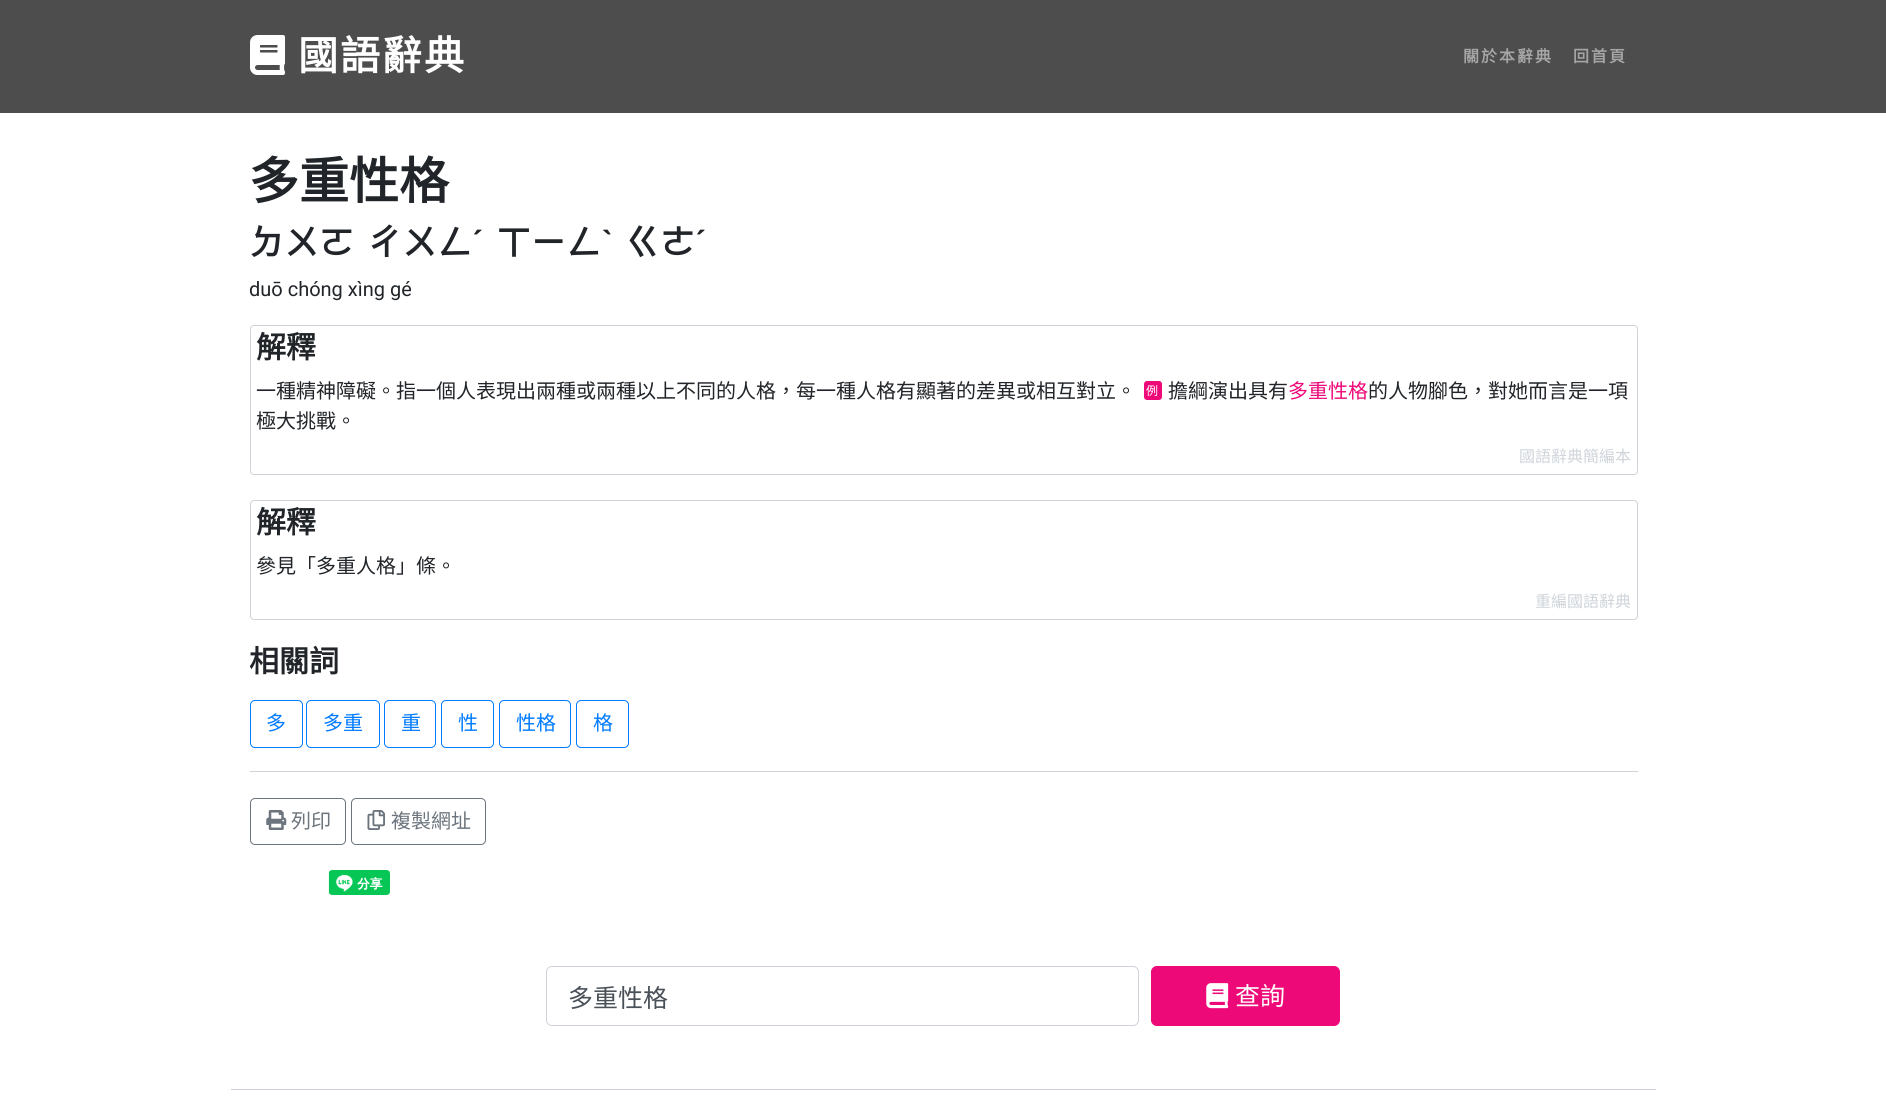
import math
import cairocffi as cairo

surface = cairo.ImageSurface(cairo.FORMAT_RGB24, 1886, 1101)
ctx = cairo.Context(surface)
options = cairo.FontOptions()
options.set_hint_metrics(cairo.HINT_METRICS_OFF)
options.set_hint_style(cairo.HINT_STYLE_NONE)
ctx.set_font_options(options)
ctx.set_miter_limit(4)


def rgb(r, g, b):
    ctx.set_source_rgb(r / 255, g / 255, b / 255)


def face(family, size, italic, bold):
    ctx.select_font_face(family, cairo.FONT_SLANT_ITALIC if italic else cairo.FONT_SLANT_NORMAL, cairo.FONT_WEIGHT_BOLD if bold else cairo.FONT_WEIGHT_NORMAL)
    ctx.set_font_size(size)


def label(x, y, s):
    ctx.move_to(x, y)
    ctx.show_text(s)


def tracked(x, y, s, letter, word):
    ctx.move_to(x, y)
    for ch in s:
        ctx.show_text(ch)
        ctx.rel_move_to(letter + word * (ch == ' '), 0)


def rect(x, y, w, h):
    ctx.rectangle(x, y, w, h)
    ctx.fill()


def rrect(x, y, w, h, r):
    ctx.new_sub_path()
    for i, (u, v) in enumerate([(x + w - r, y + h - r), (x + r, y + h - r), (x + r, y + r), (x + w - r, y + r)]):
        ctx.arc(u, v, r, i * math.pi / 2, (i + 1) * math.pi / 2)
    ctx.close_path()


def image(path, x, y, w, h):
    ctx.save()
    ctx.set_source_surface(cairo.ImageSurface.create_from_png(path), x, y)
    ctx.rectangle(x, y, w, h)
    ctx.fill()
    ctx.restore()


rgb(255, 255, 255)
ctx.paint()
rgb(77, 77, 77)
rect(0, 0, 1886, 113)
image('image0.png', 250, 35, 35, 40)
face('Noto Sans CJK TC', 40, 0, 1)
rgb(255, 255, 255)
tracked(298, 70, '國語辭典', 2, 0)
face('Noto Sans CJK TC', 16, 0, 1)
rgb(166, 166, 166)
tracked(1463, 62, '關於本辭典', 2, 0)
tracked(1573, 62, '回首頁', 2, 0)
face('Noto Sans CJK TC', 50, 0, 1)
rgb(33, 37, 41)
label(249, 199, '多重性格')
face('Noto Sans CJK TC', 35, 0, 1)
label(249, 255, 'ㄉㄨㄛ')
label(367, 255, 'ㄔㄨㄥ')
face('Liberation Sans', 35, 0, 1)
label(472, 255, 'ˊ')
face('Noto Sans CJK TC', 35, 0, 1)
label(496, 255, 'ㄒㄧㄥ')
face('Liberation Sans', 35, 0, 1)
label(601, 255, 'ˋ')
face('Noto Sans CJK TC', 35, 0, 1)
label(625, 255, 'ㄍㄜ')
face('Liberation Sans', 35, 0, 1)
label(695, 255, 'ˊ')
face('Roboto', 20, 0, 0)
label(249, 296, 'duō chóng xìng gé')
rrect(250.5, 325.5, 1387, 149, 3.5)
rgb(206, 212, 218)
ctx.set_line_width(1)
ctx.stroke()
face('Noto Sans CJK TC', 30, 0, 1)
rgb(33, 37, 41)
label(256, 358, '解釋')
face('Noto Sans CJK TC', 20, 0, 0)
label(256, 398, '一種精神障礙。指一個人表現出兩種或兩種以上不同的人格，每一種人格有顯著的差異或相互對立。')
rgb(238, 9, 121)
rrect(1143.5, 380.5, 19, 20, 3.5)
ctx.fill_preserve()
rgb(255, 255, 255)
ctx.stroke()
face('Noto Sans CJK TC', 12, 0, 0)
label(1146, 395, '例')
face('Noto Sans CJK TC', 20, 0, 0)
rgb(33, 37, 41)
label(1168, 398, '擔綱演出具有')
rgb(238, 9, 121)
label(1288, 398, '多重性格')
rgb(33, 37, 41)
label(1368, 398, '的人物腳色，對她而言是一項')
label(256, 428, '極大挑戰。')
face('Noto Sans CJK TC', 16, 0, 0)
rgb(206, 212, 218)
label(1519, 462, '國語辭典簡編本')
rrect(250.5, 500.5, 1387, 119, 3.5)
ctx.stroke()
face('Noto Sans CJK TC', 30, 0, 1)
rgb(33, 37, 41)
label(256, 533, '解釋')
face('Noto Sans CJK TC', 20, 0, 0)
label(256, 573, '參見「多重人格」條。')
face('Noto Sans CJK TC', 16, 0, 0)
rgb(206, 212, 218)
label(1535, 607, '重編國語辭典')
face('Noto Sans CJK TC', 30, 0, 1)
rgb(33, 37, 41)
label(249, 672, '相關詞')
rrect(250.5, 700.5, 52, 47, 4.5)
rgb(0, 123, 255)
ctx.stroke()
face('Noto Sans CJK TC', 20, 0, 0)
label(266, 730, '多')
rrect(306.5, 700.5, 73, 47, 4.5)
ctx.stroke()
label(323, 730, '多重')
rrect(384.5, 700.5, 51, 47, 4.5)
ctx.stroke()
label(401, 730, '重')
rrect(441.5, 700.5, 52, 47, 4.5)
ctx.stroke()
label(458, 730, '性')
rrect(499.5, 700.5, 71, 47, 4.5)
ctx.stroke()
label(516, 730, '性格')
rrect(576.5, 700.5, 52, 47, 4.5)
ctx.stroke()
label(593, 730, '格')
rgb(206, 212, 218)
rect(250, 771, 1388, 1)
rrect(250.5, 798.5, 95, 46, 4.5)
rgb(108, 117, 125)
ctx.stroke()
image('image1.png', 266, 810, 21, 20)
label(291, 828, '列印')
rrect(351.5, 798.5, 134, 46, 4.5)
ctx.stroke()
image('image2.png', 367, 810, 18, 20)
label(391, 828, '複製網址')
image('image3.png', 328, 870, 62, 25)
rrect(546.5, 966.5, 592, 59, 5.5)
rgb(206, 212, 218)
ctx.stroke()
face('Noto Sans CJK TC', 25, 0, 0)
rgb(73, 80, 87)
label(568, 1007, '多重性格')
rgb(238, 9, 121)
rrect(1151.5, 966.5, 188, 59, 5.5)
ctx.fill_preserve()
ctx.stroke()
image('image4.png', 1206, 983, 23, 26)
rgb(255, 255, 255)
label(1235, 1005, '查詢')
rgb(206, 212, 218)
rect(231, 1089, 1425, 1)
surface.write_to_png('render.png')
